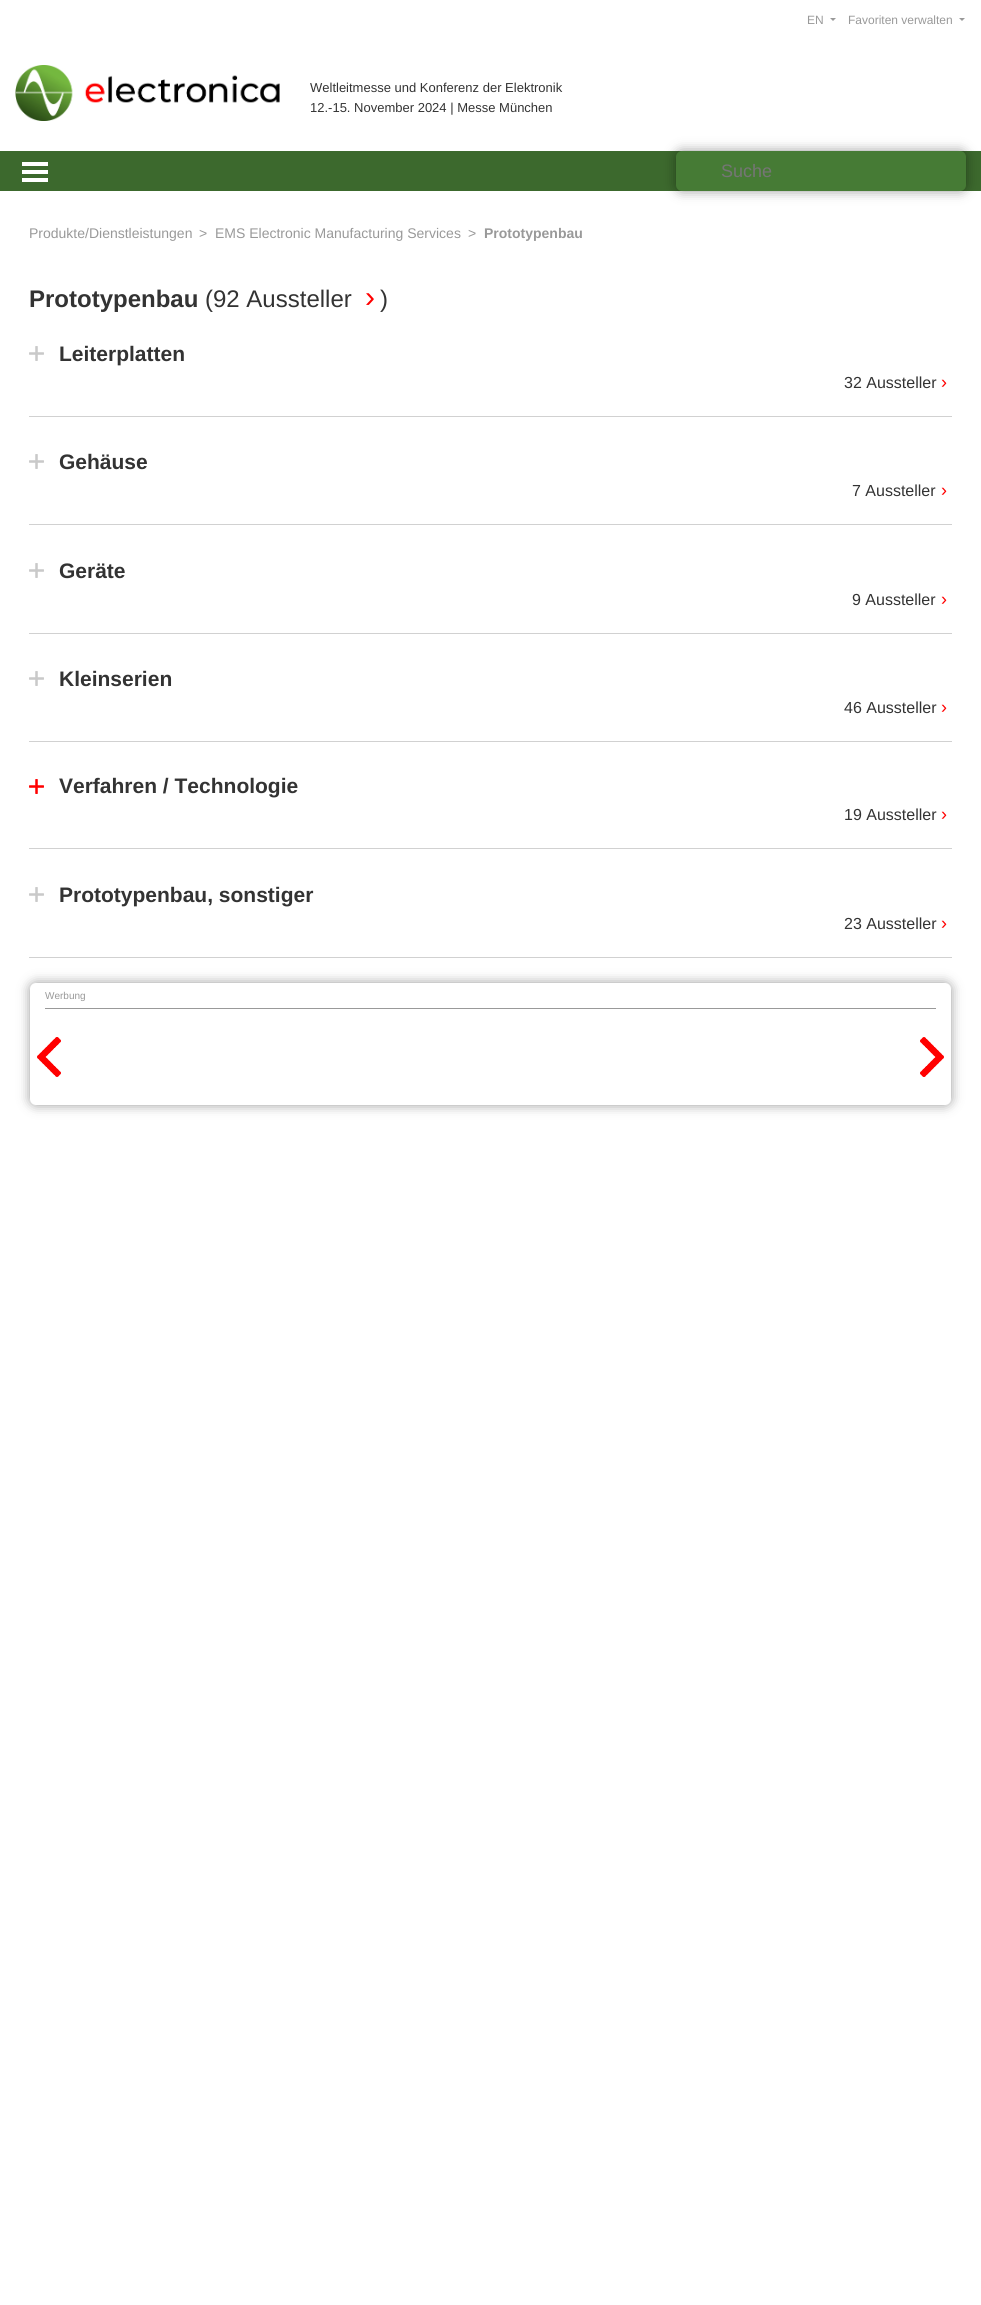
import math
import cairocffi as cairo

surface = cairo.ImageSurface(cairo.FORMAT_RGB24, 981, 2305)
ctx = cairo.Context(surface)
options = cairo.FontOptions()
options.set_hint_metrics(cairo.HINT_METRICS_OFF)
options.set_hint_style(cairo.HINT_STYLE_NONE)
ctx.set_font_options(options)
ctx.set_miter_limit(4)


def rgb(r, g, b):
    ctx.set_source_rgb(r / 255, g / 255, b / 255)


def face(family, size, italic, bold):
    ctx.select_font_face(family, cairo.FONT_SLANT_ITALIC if italic else cairo.FONT_SLANT_NORMAL, cairo.FONT_WEIGHT_BOLD if bold else cairo.FONT_WEIGHT_NORMAL)
    ctx.set_font_size(size)


def label(x, y, s):
    ctx.move_to(x, y)
    ctx.show_text(s)


def rect(x, y, w, h):
    ctx.rectangle(x, y, w, h)
    ctx.fill()


def rrect(x, y, w, h, r):
    ctx.new_sub_path()
    for i, (u, v) in enumerate([(x + w - r, y + h - r), (x + r, y + h - r), (x + r, y + r), (x + w - r, y + r)]):
        ctx.arc(u, v, r, i * math.pi / 2, (i + 1) * math.pi / 2)
    ctx.close_path()


def soft_shadow(x, y, w, h, r, blur, alpha):
    ctx.push_group_with_content(cairo.CONTENT_ALPHA)
    ctx.set_operator(cairo.OPERATOR_SOURCE)
    for i in range(15, -16, -2):
        e = blur * i / 6
        if min(w, h) + 2 * e > 0:
            ctx.set_source_rgba(0, 0, 0, alpha * math.erfc((i - 1) / 8.5) / 2)
            rrect(x - e, y - e, w + 2 * e, h + 2 * e, max(0, min(r + e + blur * .6, min(w, h) / 2 + e)))
            ctx.fill()
    ctx.mask(ctx.pop_group())


def image(path, x, y, w, h):
    ctx.save()
    ctx.set_source_surface(cairo.ImageSurface.create_from_png(path), x, y)
    ctx.rectangle(x, y, w, h)
    ctx.fill()
    ctx.restore()


rgb(255, 255, 255)
ctx.paint()
face('Liberation Sans', 12, 0, 0)
rgb(153, 153, 153)
label(807, 24, 'EN')
ctx.new_path()
ctx.move_to(830, 18)
ctx.line_to(836, 18)
ctx.line_to(833, 21)
ctx.close_path()
ctx.fill()
label(848, 24, 'Favoriten verwalten')
ctx.new_path()
ctx.move_to(959, 18)
ctx.line_to(965, 18)
ctx.line_to(962, 21)
ctx.close_path()
ctx.fill()
image('image0.png', 15, 65, 265, 56)
face('Liberation Sans', 13, 0, 0)
rgb(51, 51, 51)
label(310, 92, 'Weltleitmesse und Konferenz der Elektronik')
label(310, 112, '12.-15. November 2024 | Messe München')
rgb(60, 105, 45)
rect(0, 151, 981, 40)
rgb(0, 0, 0)
soft_shadow(676, 151, 290, 40, 6, 6, 0.4)
rgb(70, 123, 53)
rrect(676, 151, 290, 40, 6)
ctx.fill()
face('Liberation Sans', 18, 0, 0)
rgb(117, 117, 117)
label(721, 177, 'Suche')
image('image1.png', 22, 162, 26, 20)
face('Liberation Sans', 14, 0, 0)
rgb(153, 153, 153)
label(29, 238, 'Produkte/Dienstleistungen')
label(199, 238, '>')
label(215, 238, 'EMS Electronic Manufacturing Services')
label(468, 238, '>')
face('Liberation Sans', 14, 0, 1)
label(484, 238, 'Prototypenbau')
face('Liberation Sans', 24, 0, 1)
rgb(51, 51, 51)
label(29, 307, 'Prototypenbau')
face('Liberation Sans', 24, 0, 0)
label(205, 307, '(92 Aussteller')
face('Liberation Sans', 30, 0, 0)
rgb(255, 0, 0)
label(365, 307, '›')
face('Liberation Sans', 24, 0, 0)
rgb(51, 51, 51)
label(380, 307, ')')
image('image2.png', 29, 346, 15, 15)
face('Liberation Sans', 21, 0, 1)
label(59, 361, 'Leiterplatten')
face('Liberation Sans', 16, 0, 0)
label(844, 388, '32 Aussteller')
face('Liberation Sans', 18, 0, 0)
rgb(255, 0, 0)
label(941, 388, '›')
rgb(209, 209, 209)
rect(29, 416, 923, 1)
image('image2.png', 29, 454, 15, 15)
face('Liberation Sans', 21, 0, 1)
rgb(51, 51, 51)
label(59, 469, 'Gehäuse')
face('Liberation Sans', 16, 0, 0)
label(852, 496, '7 Aussteller')
face('Liberation Sans', 18, 0, 0)
rgb(255, 0, 0)
label(941, 496, '›')
rgb(209, 209, 209)
rect(29, 524, 923, 1)
image('image2.png', 29, 563, 15, 15)
face('Liberation Sans', 21, 0, 1)
rgb(51, 51, 51)
label(59, 578, 'Geräte')
face('Liberation Sans', 16, 0, 0)
label(852, 605, '9 Aussteller')
face('Liberation Sans', 18, 0, 0)
rgb(255, 0, 0)
label(941, 605, '›')
rgb(209, 209, 209)
rect(29, 633, 923, 1)
image('image2.png', 29, 671, 15, 15)
face('Liberation Sans', 21, 0, 1)
rgb(51, 51, 51)
label(59, 686, 'Kleinserien')
face('Liberation Sans', 16, 0, 0)
label(844, 713, '46 Aussteller')
face('Liberation Sans', 18, 0, 0)
rgb(255, 0, 0)
label(941, 713, '›')
rgb(209, 209, 209)
rect(29, 741, 923, 1)
image('image3.png', 29, 779, 15, 15)
face('Liberation Sans', 21, 0, 1)
rgb(51, 51, 51)
label(59, 793, 'Verfahren / Technologie')
face('Liberation Sans', 16, 0, 0)
label(844, 820, '19 Aussteller')
face('Liberation Sans', 18, 0, 0)
rgb(255, 0, 0)
label(941, 820, '›')
rgb(209, 209, 209)
rect(29, 848, 923, 1)
image('image2.png', 29, 887, 15, 15)
face('Liberation Sans', 21, 0, 1)
rgb(51, 51, 51)
label(59, 902, 'Prototypenbau, sonstiger')
face('Liberation Sans', 16, 0, 0)
label(844, 929, '23 Aussteller')
face('Liberation Sans', 18, 0, 0)
rgb(255, 0, 0)
label(941, 929, '›')
rgb(209, 209, 209)
rect(29, 957, 923, 1)
rgb(0, 0, 0)
soft_shadow(30, 983, 921, 122, 6, 6, 0.4)
rgb(255, 255, 255)
rrect(30, 983, 921, 122, 6)
ctx.fill()
rgb(153, 153, 153)
rect(45, 1008, 891, 1)
face('Liberation Sans', 10, 0, 0)
label(45, 999, 'Werbung')
image('image4.png', 37, 1037, 24, 40)
image('image5.png', 920, 1037, 24, 40)
surface.write_to_png('render.png')
